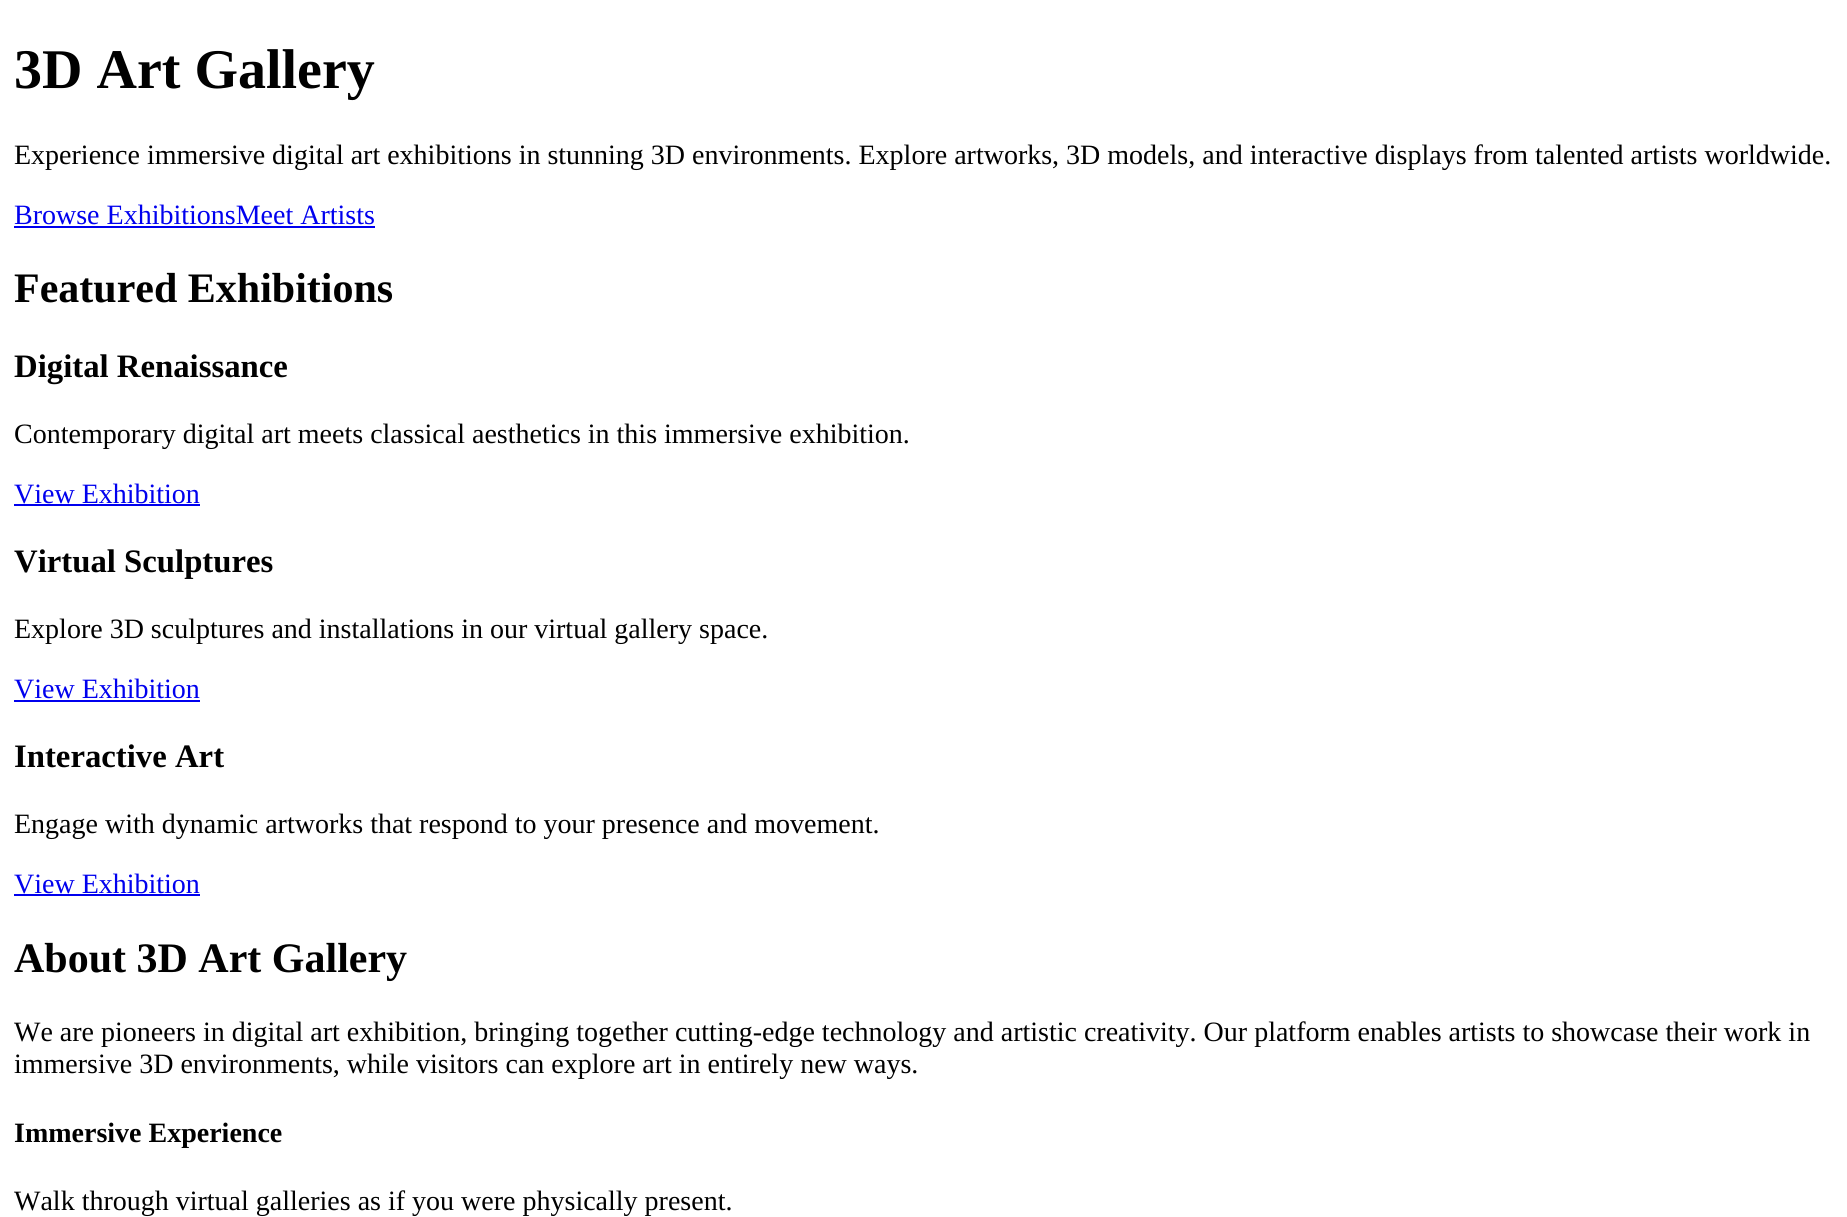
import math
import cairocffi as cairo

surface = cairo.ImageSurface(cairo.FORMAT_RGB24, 1847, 1217)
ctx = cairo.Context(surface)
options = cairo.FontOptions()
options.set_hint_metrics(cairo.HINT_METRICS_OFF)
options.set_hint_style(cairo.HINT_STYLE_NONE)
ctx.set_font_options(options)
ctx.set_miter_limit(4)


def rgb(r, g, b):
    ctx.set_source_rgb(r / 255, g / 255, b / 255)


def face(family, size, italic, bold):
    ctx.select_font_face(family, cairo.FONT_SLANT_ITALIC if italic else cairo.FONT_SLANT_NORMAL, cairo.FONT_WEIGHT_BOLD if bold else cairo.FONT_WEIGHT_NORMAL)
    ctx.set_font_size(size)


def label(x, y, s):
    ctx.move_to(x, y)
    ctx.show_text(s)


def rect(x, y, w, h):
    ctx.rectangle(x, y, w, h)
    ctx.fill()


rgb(255, 255, 255)
ctx.paint()
face('Liberation Serif', 56, 0, 1)
rgb(0, 0, 0)
label(14, 88, '3D Art Gallery')
face('Liberation Serif', 28, 0, 0)
label(14, 164, 'Experience immersive digital art exhibitions in stunning 3D environments. Explore artworks, 3D models, and interactive displays from talented artists worldwide.')
rgb(0, 0, 238)
label(14, 224, 'Browse ExhibitionsMeet Artists')
rect(14, 226, 361, 2)
face('Liberation Serif', 42, 0, 1)
rgb(0, 0, 0)
label(14, 302, 'Featured Exhibitions')
face('Liberation Serif', 32.75, 0, 1)
label(14, 377, 'Digital Renaissance')
face('Liberation Serif', 28, 0, 0)
label(14, 443, 'Contemporary digital art meets classical aesthetics in this immersive exhibition.')
rgb(0, 0, 238)
label(14, 503, 'View Exhibition')
rect(14, 504, 186, 2)
face('Liberation Serif', 32.75, 0, 1)
rgb(0, 0, 0)
label(14, 572, 'Virtual Sculptures')
face('Liberation Serif', 28, 0, 0)
label(14, 638, 'Explore 3D sculptures and installations in our virtual gallery space.')
rgb(0, 0, 238)
label(14, 698, 'View Exhibition')
rect(14, 700, 186, 2)
face('Liberation Serif', 32.75, 0, 1)
rgb(0, 0, 0)
label(14, 767, 'Interactive Art')
face('Liberation Serif', 28, 0, 0)
label(14, 833, 'Engage with dynamic artworks that respond to your presence and movement.')
rgb(0, 0, 238)
label(14, 893, 'View Exhibition')
rect(14, 894, 186, 2)
face('Liberation Serif', 42, 0, 1)
rgb(0, 0, 0)
label(14, 972, 'About 3D Art Gallery')
face('Liberation Serif', 28, 0, 0)
label(14, 1041, 'We are pioneers in digital art exhibition, bringing together cutting-edge technology and artistic creativity. Our platform enables artists to showcase their work in')
label(14, 1073, 'immersive 3D environments, while visitors can explore art in entirely new ways.')
face('Liberation Serif', 28, 0, 1)
label(14, 1142, 'Immersive Experience')
face('Liberation Serif', 28, 0, 0)
label(14, 1210, 'Walk through virtual galleries as if you were physically present.')
surface.write_to_png('render.png')
